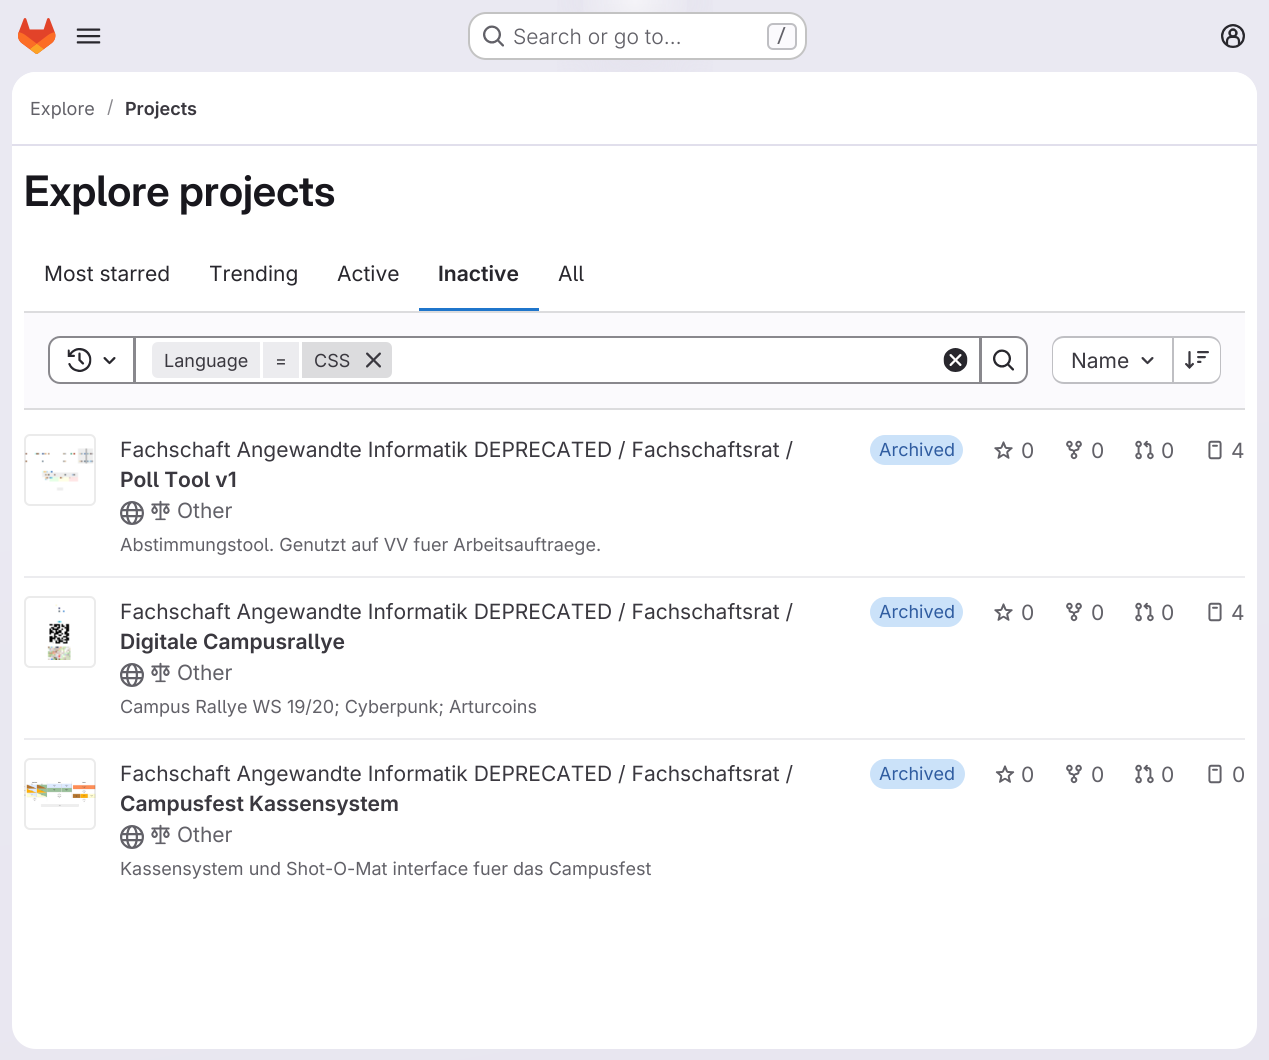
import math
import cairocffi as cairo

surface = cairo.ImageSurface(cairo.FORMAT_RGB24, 1269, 1060)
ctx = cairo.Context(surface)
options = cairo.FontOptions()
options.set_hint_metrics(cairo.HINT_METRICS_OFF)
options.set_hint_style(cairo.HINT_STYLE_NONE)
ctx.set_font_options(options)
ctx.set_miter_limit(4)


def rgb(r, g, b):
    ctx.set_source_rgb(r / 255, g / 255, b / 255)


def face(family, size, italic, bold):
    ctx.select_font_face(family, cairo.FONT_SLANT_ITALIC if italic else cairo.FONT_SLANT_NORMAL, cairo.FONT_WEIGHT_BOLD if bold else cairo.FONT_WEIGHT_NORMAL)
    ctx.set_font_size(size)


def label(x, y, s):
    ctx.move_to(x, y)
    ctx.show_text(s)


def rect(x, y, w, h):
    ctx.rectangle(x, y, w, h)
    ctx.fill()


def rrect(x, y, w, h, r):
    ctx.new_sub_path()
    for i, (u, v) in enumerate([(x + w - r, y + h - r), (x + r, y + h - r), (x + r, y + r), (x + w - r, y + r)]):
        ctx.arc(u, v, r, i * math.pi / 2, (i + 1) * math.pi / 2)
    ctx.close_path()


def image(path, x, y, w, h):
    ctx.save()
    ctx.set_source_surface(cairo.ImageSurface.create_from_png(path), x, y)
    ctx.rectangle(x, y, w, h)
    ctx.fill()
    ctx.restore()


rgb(255, 255, 255)
ctx.paint()
gradient = cairo.LinearGradient(744, 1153, 525, -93)
gradient.add_color_stop_rgba(0, 0.91, 0.902, 0.941, 1)
gradient.add_color_stop_rgba(0.7, 0.918, 0.914, 0.949, 1)
ctx.set_source(gradient)
rect(0, 0, 1269, 1060)
gradient = cairo.RadialGradient(0, 0, 0, 0, 0, 1)
gradient.set_matrix(cairo.Matrix(1 / 635, 0, 0, 1 / 1061, -1 * 635 / 635, -1 * 0 / 1061))
gradient.add_color_stop_rgba(0, 0.894, 0.886, 0.929, 1)
gradient.add_color_stop_rgba(0.17, 0.894, 0.886, 0.929, 0)
ctx.set_source(gradient)
rect(557, 0, 156, 72)
gradient = cairo.RadialGradient(0, 0, 0, 0, 0, 1)
gradient.set_matrix(cairo.Matrix(1 / 635, 0, 0, 1 / 1061, -1 * 635 / 635, -1 * 0 / 1061))
gradient.add_color_stop_rgba(0, 0.894, 0.886, 0.925, 1)
gradient.add_color_stop_rgba(0.12, 0.894, 0.886, 0.925, 0)
ctx.set_source(gradient)
rect(604, 4, 62, 48)
gradient = cairo.RadialGradient(635, 0, 0, 635, 0, 1236)
gradient.add_color_stop_rgba(0, 1, 1, 1, 0.6)
gradient.add_color_stop_rgba(0.05, 1, 1, 1, 0)
ctx.set_source(gradient)
rect(583, 0, 104, 12)
image('image0.png', 18, 18, 38, 36)
image('image1.png', 76, 28, 25, 16)
rgb(255, 255, 255)
rrect(468, 12, 339, 48, 18)
ctx.fill()
rrect(469, 13, 337, 46, 17)
ctx.set_source_rgba(0.02, 0.02, 0.024, 0.24)
ctx.stroke()
image('image2.png', 483, 25, 21, 22)
face('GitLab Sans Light', 21, 0, 0)
rgb(98, 97, 104)
label(513, 44, 'Search or go to…')
rgb(251, 250, 253)
rrect(768, 24, 28, 25, 5)
ctx.fill_preserve()
rgb(191, 191, 195)
ctx.stroke()
face('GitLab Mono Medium', 18, 0, 0)
rgb(98, 97, 104)
label(776, 42, '/')
image('image3.png', 1221, 24, 24, 24)
rgb(255, 255, 255)
rrect(12, 72, 1245, 977, 24)
ctx.fill()
ctx.new_path()
ctx.move_to(36, 72)
ctx.line_to(1233, 72)
ctx.curve_to(1246.5, 72, 1257, 82.5, 1257, 96)
ctx.line_to(1257, 146)
ctx.line_to(12, 146)
ctx.line_to(12, 96)
ctx.curve_to(12, 82.5, 22.5, 72, 36, 72)
ctx.close_path()
ctx.fill()
rgb(225, 223, 236)
rect(12, 144, 1245, 2)
face('GitLab Sans', 18, 0, 0)
rgb(98, 97, 104)
label(30, 115, 'Explore')
rgb(137, 136, 141)
label(107, 113, '/')
face('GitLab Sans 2 SemiBold', 18, 0, 0)
rgb(58, 56, 63)
label(125, 115, 'Projects')
face('GitLab Sans SemiBold', 42, 0, 0)
rgb(24, 23, 29)
label(24, 206, 'Explore projects')
face('GitLab Sans', 21, 0, 0)
rgb(40, 39, 45)
label(44, 281, 'Most starred')
label(209, 281, 'Trending')
label(337, 281, 'Active')
face('GitLab Sans 2 SemiBold', 21, 0, 0)
label(438, 281, 'Inactive')
rgb(31, 117, 203)
rect(419, 308, 120, 3)
face('GitLab Sans', 21, 0, 0)
rgb(40, 39, 45)
label(558, 281, 'All')
rgb(251, 250, 253)
rect(24, 313, 1221, 95)
rgb(220, 220, 222)
rect(24, 311, 1221, 2)
rect(24, 408, 1221, 2)
rgb(255, 255, 255)
ctx.rectangle(135, 337, 845, 46)
ctx.fill_preserve()
rgb(137, 136, 141)
ctx.stroke()
rgb(255, 255, 255)
ctx.new_path()
ctx.move_to(60, 337)
ctx.line_to(134, 337)
ctx.line_to(134, 383)
ctx.line_to(60, 383)
ctx.curve_to(54, 383, 49, 378, 49, 372)
ctx.line_to(49, 348)
ctx.curve_to(49, 342, 54, 337, 60, 337)
ctx.close_path()
ctx.fill_preserve()
rgb(137, 136, 141)
ctx.stroke()
image('image4.png', 67, 348, 25, 24)
image('image5.png', 103, 357, 13, 8)
rgb(236, 236, 239)
ctx.new_path()
ctx.move_to(158, 342)
ctx.line_to(260, 342)
ctx.line_to(260, 378)
ctx.line_to(158, 378)
ctx.curve_to(154.5, 378, 152, 375.5, 152, 372)
ctx.line_to(152, 348)
ctx.curve_to(152, 344.5, 154.5, 342, 158, 342)
ctx.close_path()
ctx.fill()
face('GitLab Sans', 18, 0, 0)
rgb(58, 56, 63)
label(164, 367, 'Language')
rgb(236, 236, 239)
rect(263, 342, 36, 36)
rgb(58, 56, 63)
label(275, 367, '=')
rgb(220, 220, 222)
ctx.new_path()
ctx.move_to(302, 342)
ctx.line_to(386, 342)
ctx.curve_to(389.5, 342, 392, 344.5, 392, 348)
ctx.line_to(392, 372)
ctx.curve_to(392, 375.5, 389.5, 378, 386, 378)
ctx.line_to(302, 378)
ctx.close_path()
ctx.fill()
rgb(58, 56, 63)
label(314, 367, 'CSS')
image('image6.png', 366, 352, 15, 16)
image('image7.png', 943, 348, 25, 24)
rgb(255, 255, 255)
ctx.new_path()
ctx.move_to(981, 337)
ctx.line_to(1016, 337)
ctx.curve_to(1022, 337, 1027, 342, 1027, 348)
ctx.line_to(1027, 372)
ctx.curve_to(1027, 378, 1022, 383, 1016, 383)
ctx.line_to(981, 383)
ctx.close_path()
ctx.fill_preserve()
rgb(137, 136, 141)
ctx.stroke()
image('image8.png', 993, 349, 21, 22)
rgb(255, 255, 255)
ctx.new_path()
ctx.move_to(1064, 338)
ctx.line_to(1172, 338)
ctx.line_to(1172, 383)
ctx.line_to(1064, 383)
ctx.curve_to(1058, 383, 1053, 378, 1053, 372)
ctx.line_to(1053, 349)
ctx.curve_to(1053, 343, 1058, 338, 1064, 338)
ctx.close_path()
ctx.fill()
rgb(191, 191, 195)
ctx.set_fill_rule(cairo.FILL_RULE_EVEN_ODD)
ctx.new_path()
ctx.move_to(1064, 336)
ctx.line_to(1172, 336)
ctx.line_to(1172, 384)
ctx.line_to(1064, 384)
ctx.curve_to(1057, 384, 1052, 379, 1052, 372)
ctx.line_to(1052, 348)
ctx.curve_to(1052, 341, 1057, 336, 1064, 336)
ctx.close_path()
ctx.move_to(1064, 338)
ctx.line_to(1172, 338)
ctx.line_to(1172, 382)
ctx.line_to(1064, 382)
ctx.curve_to(1058, 382, 1053, 378, 1053, 372)
ctx.line_to(1053, 348)
ctx.curve_to(1053, 342, 1058, 338, 1064, 338)
ctx.close_path()
ctx.fill()
face('GitLab Sans', 21, 0, 0)
rgb(58, 56, 63)
label(1071, 368, 'Name')
image('image9.png', 1141, 357, 13, 8)
rgb(255, 255, 255)
ctx.new_path()
ctx.move_to(1173, 338)
ctx.line_to(1209, 338)
ctx.curve_to(1215, 338, 1220, 343, 1220, 349)
ctx.line_to(1220, 372)
ctx.curve_to(1220, 378, 1215, 383, 1209, 383)
ctx.line_to(1173, 383)
ctx.close_path()
ctx.fill()
rgb(191, 191, 195)
ctx.new_path()
ctx.move_to(1173, 336)
ctx.line_to(1209, 336)
ctx.curve_to(1216, 336, 1221, 341, 1221, 348)
ctx.line_to(1221, 372)
ctx.curve_to(1221, 379, 1216, 384, 1209, 384)
ctx.line_to(1173, 384)
ctx.close_path()
ctx.move_to(1173, 338)
ctx.line_to(1209, 338)
ctx.curve_to(1215, 338, 1220, 342, 1220, 348)
ctx.line_to(1220, 372)
ctx.curve_to(1220, 378, 1215, 382, 1209, 382)
ctx.line_to(1173, 382)
ctx.close_path()
ctx.fill()
rect(1172, 336, 2, 48)
image('image10.png', 1185, 351, 24, 18)
rgb(236, 236, 239)
rect(24, 576, 1221, 2)
image('image11.png', 25, 448, 69, 43)
rrect(25, 435, 70, 70, 5)
ctx.set_source_rgba(0.02, 0.02, 0.024, 0.08)
ctx.stroke()
rgb(58, 56, 63)
label(120, 457, 'Fachschaft Angewandte Informatik DEPRECATED / Fachschaftsrat /')
face('GitLab Sans 2 SemiBold', 21, 0, 0)
label(120, 487, 'Poll Tool v1')
image('image12.png', 120, 501, 24, 24)
image('image13.png', 151, 500, 19, 21)
face('GitLab Sans', 21, 0, 0)
rgb(98, 97, 104)
label(177, 518, 'Other')
face('GitLab Sans', 18, 0, 0)
label(120, 551, 'Abstimmungstool. Genutzt auf VV fuer Arbeitsauftraege.')
rgb(203, 226, 249)
rrect(870, 435, 93, 30, 15)
ctx.fill()
rgb(47, 92, 160)
label(879, 456, 'Archived')
image('image14.png', 994, 441, 19, 18)
face('GitLab Sans', 21, 0, 0)
rgb(98, 97, 104)
label(1021, 458, '0')
image('image15.png', 1066, 440, 16, 20)
label(1091, 458, '0')
image('image16.png', 1135, 440, 19, 20)
label(1161, 458, '0')
image('image17.png', 1208, 440, 14, 20)
label(1231, 458, '4')
rgb(236, 236, 239)
rect(24, 738, 1221, 2)
image('image18.png', 47, 604, 24, 56)
rrect(25, 597, 70, 70, 5)
rgb(235, 235, 235)
ctx.stroke()
rgb(58, 56, 63)
label(120, 619, 'Fachschaft Angewandte Informatik DEPRECATED / Fachschaftsrat /')
face('GitLab Sans 2 SemiBold', 21, 0, 0)
label(120, 649, 'Digitale Campusrallye')
image('image19.png', 120, 663, 24, 24)
image('image20.png', 151, 662, 19, 21)
face('GitLab Sans', 21, 0, 0)
rgb(98, 97, 104)
label(177, 680, 'Other')
face('GitLab Sans', 18, 0, 0)
label(120, 713, 'Campus Rallye WS 19/20; Cyberpunk; Arturcoins')
rgb(203, 226, 249)
rrect(870, 597, 93, 30, 15)
ctx.fill()
rgb(47, 92, 160)
label(879, 618, 'Archived')
image('image14.png', 994, 603, 19, 18)
face('GitLab Sans', 21, 0, 0)
rgb(98, 97, 104)
label(1021, 620, '0')
image('image15.png', 1066, 602, 16, 20)
label(1091, 620, '0')
image('image16.png', 1135, 602, 19, 20)
label(1161, 620, '0')
image('image17.png', 1208, 602, 14, 20)
label(1231, 620, '4')
image('image21.png', 24, 781, 72, 26)
rrect(25, 759, 70, 70, 5)
ctx.set_source_rgba(0.02, 0.02, 0.024, 0.08)
ctx.stroke()
rgb(58, 56, 63)
label(120, 781, 'Fachschaft Angewandte Informatik DEPRECATED / Fachschaftsrat /')
face('GitLab Sans 2 SemiBold', 21, 0, 0)
label(120, 811, 'Campusfest Kassensystem')
image('image19.png', 120, 825, 24, 24)
image('image20.png', 151, 824, 19, 21)
face('GitLab Sans', 21, 0, 0)
rgb(98, 97, 104)
label(177, 842, 'Other')
face('GitLab Sans', 18, 0, 0)
label(120, 875, 'Kassensystem und Shot-O-Mat interface fuer das Campusfest')
rgb(203, 226, 249)
rrect(870, 759, 95, 30, 15)
ctx.fill()
rgb(47, 92, 160)
label(879, 780, 'Archived')
image('image22.png', 995, 765, 20, 18)
face('GitLab Sans', 21, 0, 0)
rgb(98, 97, 104)
label(1021, 782, '0')
image('image15.png', 1066, 764, 16, 20)
label(1091, 782, '0')
image('image16.png', 1135, 764, 19, 20)
label(1161, 782, '0')
image('image17.png', 1208, 764, 14, 20)
label(1232, 782, '0')
surface.write_to_png('render.png')
